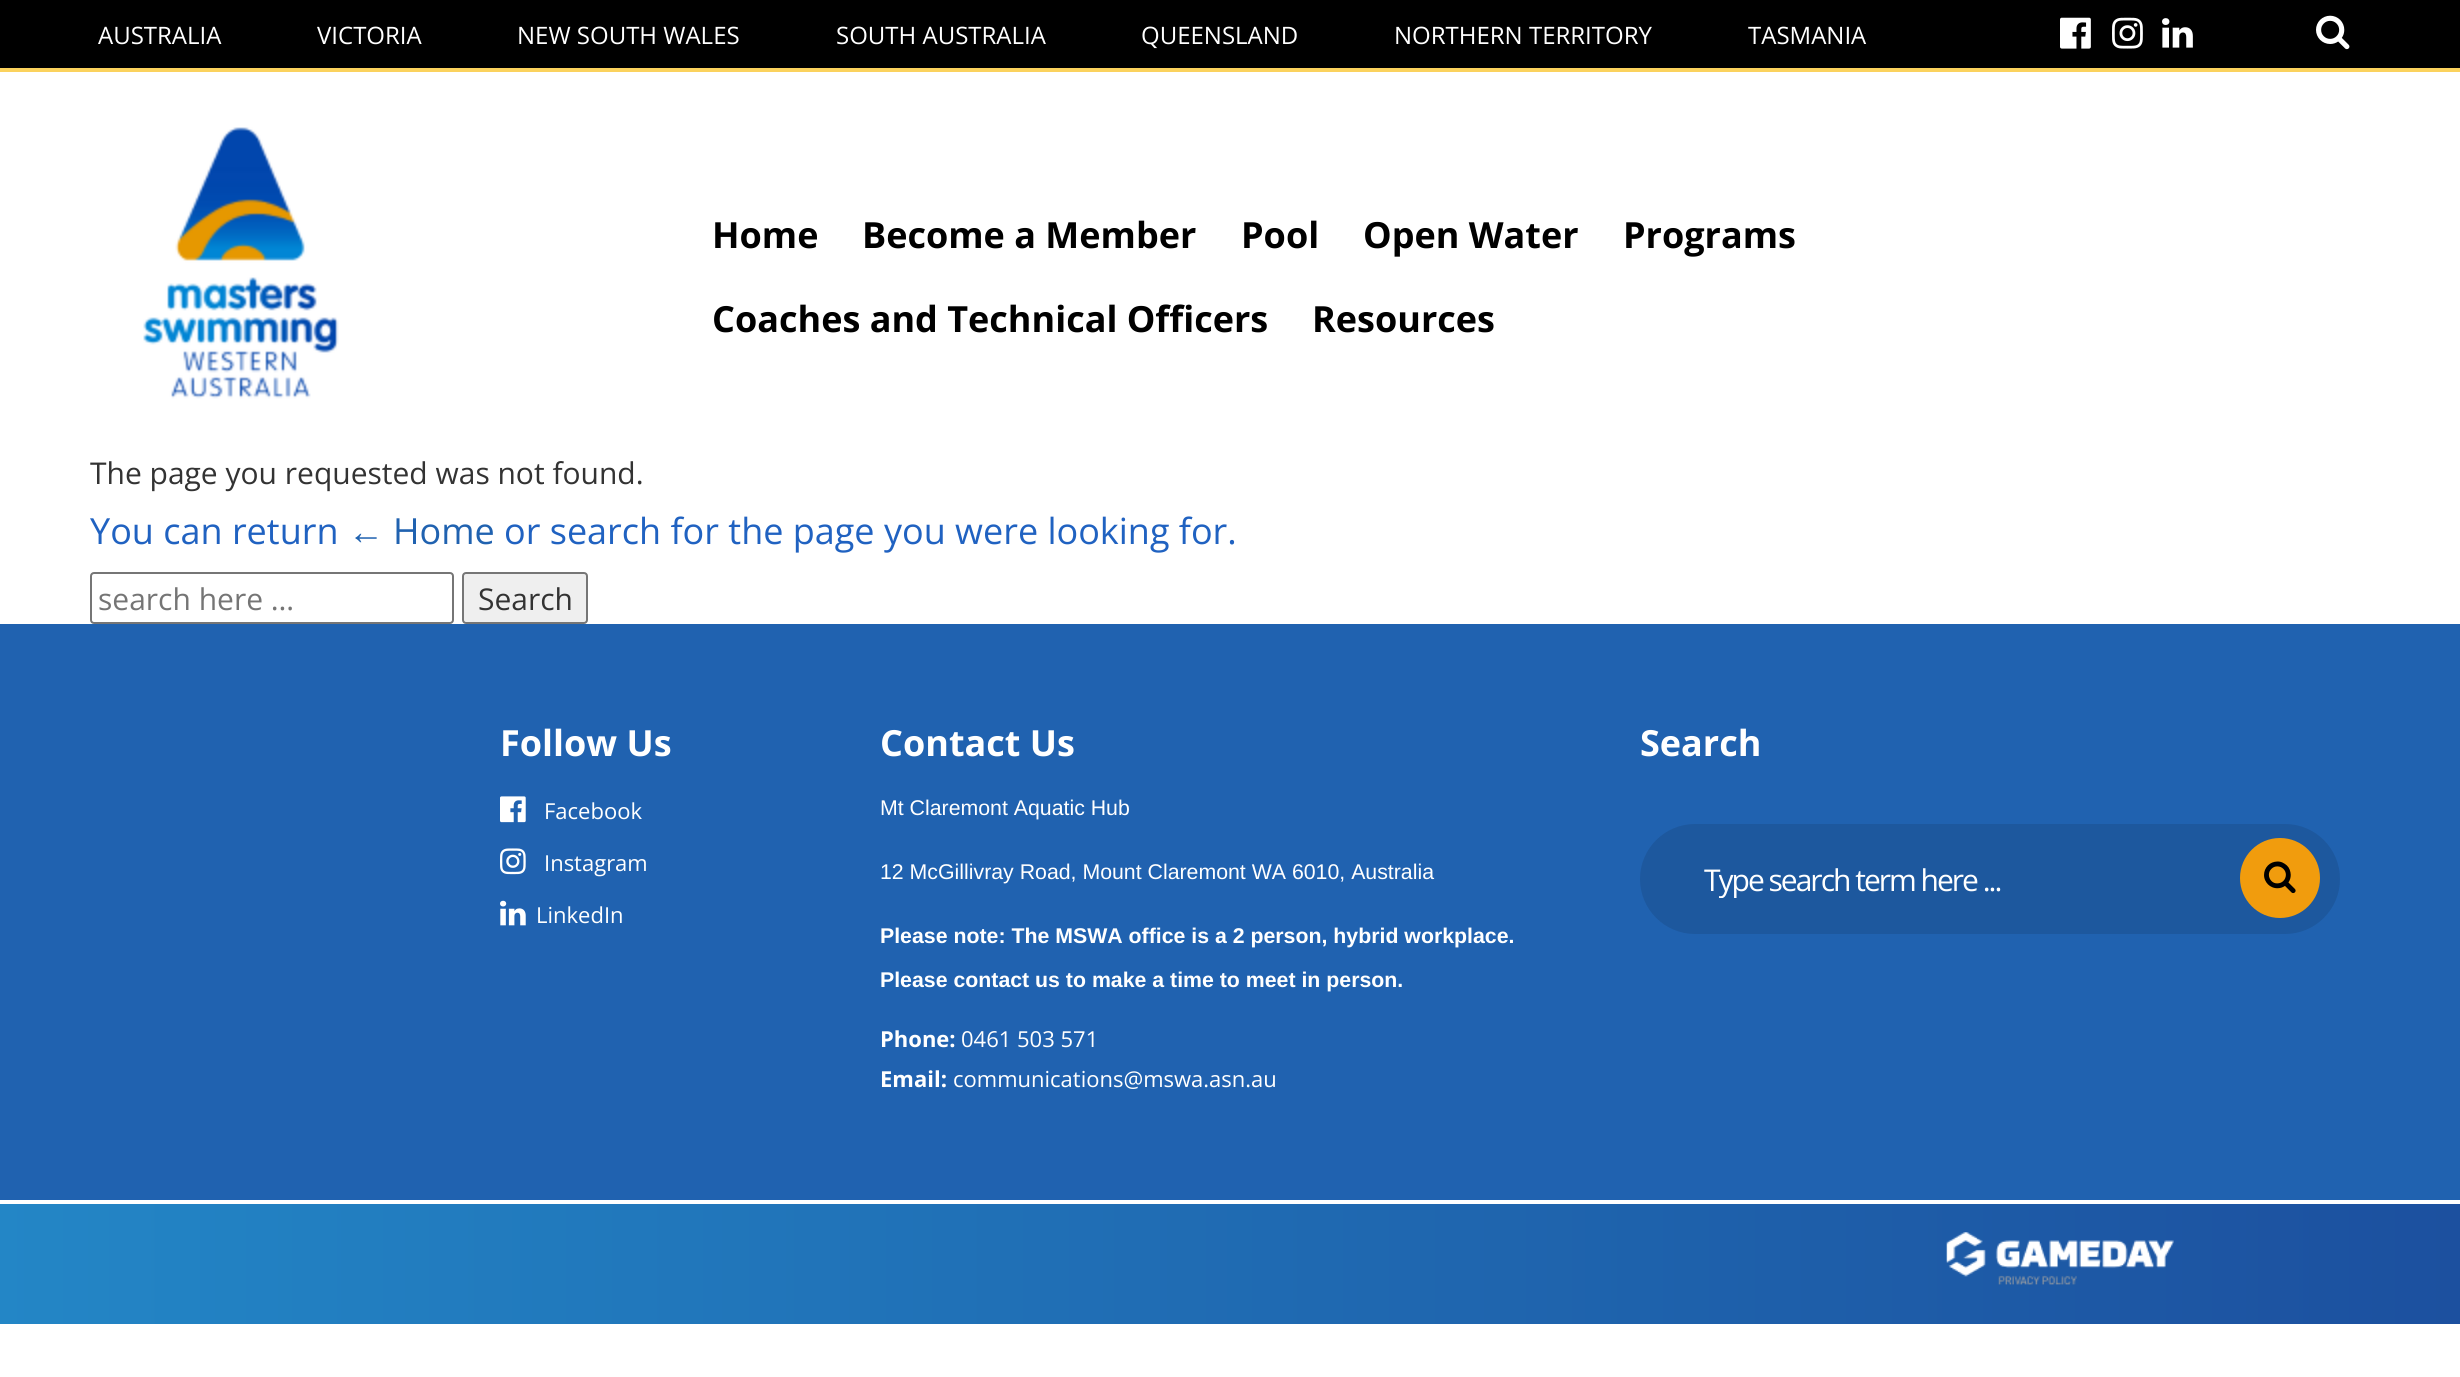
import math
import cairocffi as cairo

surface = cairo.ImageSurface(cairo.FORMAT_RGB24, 2460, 1377)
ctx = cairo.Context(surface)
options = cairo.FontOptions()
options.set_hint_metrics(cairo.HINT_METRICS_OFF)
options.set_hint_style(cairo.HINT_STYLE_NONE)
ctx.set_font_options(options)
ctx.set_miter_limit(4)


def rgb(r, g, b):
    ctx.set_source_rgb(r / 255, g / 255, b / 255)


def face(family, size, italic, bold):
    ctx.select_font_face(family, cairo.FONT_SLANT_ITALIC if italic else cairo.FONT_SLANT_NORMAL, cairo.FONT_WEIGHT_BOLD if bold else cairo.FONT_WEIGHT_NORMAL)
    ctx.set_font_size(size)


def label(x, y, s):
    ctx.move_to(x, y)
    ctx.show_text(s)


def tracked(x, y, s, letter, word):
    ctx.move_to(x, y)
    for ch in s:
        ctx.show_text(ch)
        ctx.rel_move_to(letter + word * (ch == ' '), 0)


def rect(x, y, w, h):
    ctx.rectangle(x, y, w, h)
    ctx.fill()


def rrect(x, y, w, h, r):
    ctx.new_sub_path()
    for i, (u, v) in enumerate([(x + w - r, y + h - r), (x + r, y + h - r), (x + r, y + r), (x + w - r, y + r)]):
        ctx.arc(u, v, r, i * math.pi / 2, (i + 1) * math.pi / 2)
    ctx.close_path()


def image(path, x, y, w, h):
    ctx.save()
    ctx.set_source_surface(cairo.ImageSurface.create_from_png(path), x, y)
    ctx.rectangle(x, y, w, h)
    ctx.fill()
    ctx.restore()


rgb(255, 255, 255)
ctx.paint()
rgb(0, 0, 0)
rect(0, 0, 2460, 68)
rgb(251, 210, 93)
rect(0, 68, 2460, 4)
face('Open Sans', 24, 0, 0)
rgb(255, 255, 255)
label(98, 44, 'AUSTRALIA')
label(317, 44, 'VICTORIA')
label(517, 44, 'NEW SOUTH WALES')
label(836, 44, 'SOUTH AUSTRALIA')
label(1141, 44, 'QUEENSLAND')
label(1394, 44, 'NORTHERN TERRITORY')
label(1748, 44, 'TASMANIA')
image('image0.png', 2060, 17, 31, 32)
image('image1.png', 2112, 17, 31, 32)
image('image2.png', 2162, 18, 31, 30)
image('image3.png', 2316, 15, 34, 35)
image('image4.png', 143, 127, 196, 272)
face('Open Sans', 36, 0, 1)
rgb(0, 0, 0)
label(712, 248, 'Home')
label(862, 248, 'Become a Member')
label(1241, 248, 'Pool')
label(1363, 248, 'Open Water')
label(1623, 248, 'Programs')
label(712, 332, 'Coaches and Technical Officers')
label(1312, 332, 'Resources')
face('Open Sans', 30, 0, 0)
rgb(51, 51, 51)
label(90, 484, 'The page you requested was not found.')
face('Open Sans', 36, 0, 0)
rgb(32, 98, 193)
label(90, 544, 'You can return')
face('Liberation Sans', 36, 0, 0)
rgb(32, 98, 176)
label(348, 544, '←')
face('Open Sans', 36, 0, 0)
label(393, 544, 'Home')
rgb(32, 98, 193)
label(504, 544, 'or search for the page you were looking for.')
rrect(91, 573, 362, 50, 3)
rgb(118, 118, 118)
ctx.stroke()
face('Open Sans', 30, 0, 0)
rgb(117, 117, 117)
label(98, 610, 'search here …')
rgb(239, 239, 239)
rrect(463, 573, 124, 50, 3)
ctx.fill_preserve()
rgb(118, 118, 118)
ctx.stroke()
rgb(51, 51, 51)
label(478, 610, 'Search')
rgb(32, 98, 176)
rect(0, 624, 2460, 576)
face('Open Sans', 36, 0, 1)
rgb(255, 255, 255)
label(500, 756, 'Follow Us')
image('image5.png', 500, 796, 26, 27)
face('Open Sans', 22, 0, 0)
label(544, 819, 'Facebook')
image('image6.png', 500, 848, 26, 27)
label(544, 871, 'Instagram')
image('image7.png', 500, 900, 26, 26)
label(536, 923, 'LinkedIn')
face('Open Sans', 36, 0, 1)
label(880, 756, 'Contact Us')
face('Liberation Sans', 21.3, 0, 0)
label(880, 815, 'Mt Claremont Aquatic Hub')
label(880, 879, '12 McGillivray Road, Mount Claremont WA 6010, Australia')
face('Liberation Sans', 21.3, 0, 1)
label(880, 943, 'Please note: The MSWA office is a 2 person, hybrid workplace.')
label(880, 987, 'Please contact us to make a time to meet in person.')
face('Open Sans', 22, 0, 1)
label(880, 1047, 'Phone:')
face('Open Sans', 22, 0, 0)
label(961, 1047, '0461 503 571')
face('Open Sans', 22, 0, 1)
label(880, 1087, 'Email:')
face('Open Sans', 22, 0, 0)
label(953, 1087, 'communications@mswa.asn.au')
face('Open Sans', 36, 0, 1)
label(1640, 756, 'Search')
rgb(29, 88, 158)
rrect(1640, 824, 700, 110, 55)
ctx.fill()
ctx.save()
ctx.rectangle(1704, 858, 488, 40)
ctx.clip()
face('Open Sans', 30, 0, 0)
rgb(255, 255, 255)
tracked(1704, 891, 'Type search term here ...', -2, 0)
ctx.restore()
rgb(241, 156, 13)
ctx.new_path()
ctx.arc(2280, 878, 40, 0, 2 * math.pi)
ctx.fill()
face('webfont', 34, 0, 0)
rgb(0, 0, 0)
label(2264, 888, 's')
gradient = cairo.LinearGradient(0, 1264, 2460, 1264)
gradient.add_color_stop_rgba(0, 0.137, 0.525, 0.776, 1)
gradient.add_color_stop_rgba(1, 0.11, 0.314, 0.624, 1)
ctx.set_source(gradient)
rect(0, 1204, 2460, 120)
image('image8.png', 1946, 1232, 228, 53)
surface.write_to_png('render.png')
